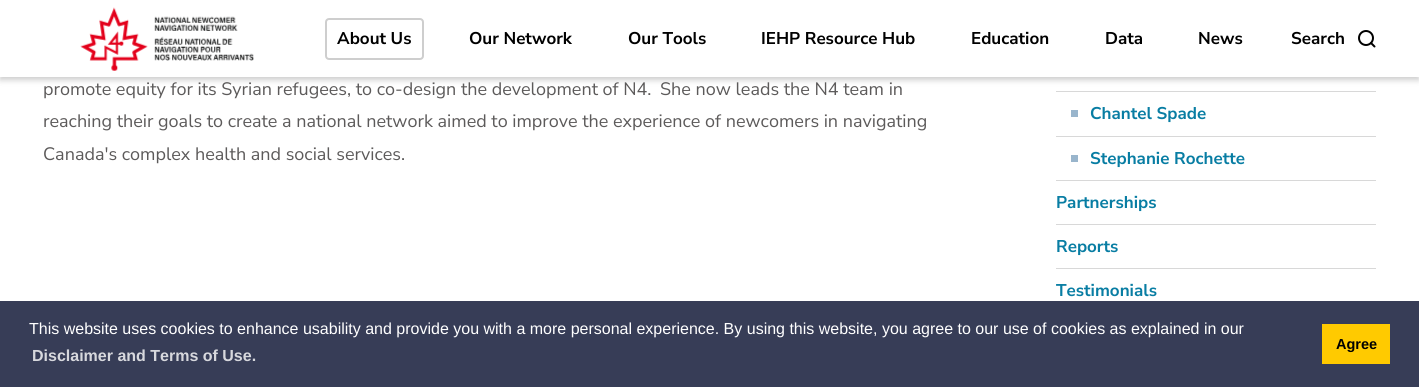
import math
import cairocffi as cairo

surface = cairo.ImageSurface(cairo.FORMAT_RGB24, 1419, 387)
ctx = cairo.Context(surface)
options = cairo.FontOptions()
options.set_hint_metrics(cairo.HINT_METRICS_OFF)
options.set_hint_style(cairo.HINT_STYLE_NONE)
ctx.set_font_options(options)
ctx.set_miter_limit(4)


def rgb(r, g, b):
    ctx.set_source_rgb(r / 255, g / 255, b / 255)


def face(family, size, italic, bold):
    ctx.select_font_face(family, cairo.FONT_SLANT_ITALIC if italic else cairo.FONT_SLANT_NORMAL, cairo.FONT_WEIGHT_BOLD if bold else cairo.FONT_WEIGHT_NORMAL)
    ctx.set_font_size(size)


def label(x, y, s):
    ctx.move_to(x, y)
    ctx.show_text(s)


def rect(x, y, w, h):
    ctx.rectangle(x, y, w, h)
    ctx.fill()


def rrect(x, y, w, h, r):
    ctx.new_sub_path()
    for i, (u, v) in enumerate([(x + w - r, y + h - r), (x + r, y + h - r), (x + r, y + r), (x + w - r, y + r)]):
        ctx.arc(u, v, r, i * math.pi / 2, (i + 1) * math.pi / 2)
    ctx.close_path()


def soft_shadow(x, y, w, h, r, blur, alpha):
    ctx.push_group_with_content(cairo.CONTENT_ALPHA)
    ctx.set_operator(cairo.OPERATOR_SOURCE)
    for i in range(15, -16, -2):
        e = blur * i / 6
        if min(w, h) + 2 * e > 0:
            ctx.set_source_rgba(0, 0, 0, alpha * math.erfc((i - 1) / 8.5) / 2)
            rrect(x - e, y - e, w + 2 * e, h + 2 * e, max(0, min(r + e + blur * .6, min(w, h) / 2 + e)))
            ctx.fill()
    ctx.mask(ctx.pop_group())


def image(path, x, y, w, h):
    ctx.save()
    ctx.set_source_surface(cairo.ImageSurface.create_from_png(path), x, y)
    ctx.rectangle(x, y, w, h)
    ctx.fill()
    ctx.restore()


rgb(255, 255, 255)
ctx.paint()
rgb(0, 0, 0)
soft_shadow(0, -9, 1419, 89, 0, 3, 0.2)
rgb(255, 255, 255)
rect(0, 0, 1419, 77)
image('image0.png', 80, 7, 174, 64)
rrect(326, 19, 97, 40, 3)
rgb(206, 206, 206)
ctx.stroke()
face('Nunito Sans', 17, 0, 1)
rgb(0, 0, 0)
label(337, 44, 'About Us')
label(469, 44, 'Our Network')
label(628, 44, 'Our Tools')
label(761, 44, 'IEHP Resource Hub')
label(971, 44, 'Education')
label(1105, 44, 'Data')
label(1198, 44, 'News')
label(1291, 44, 'Search')
ctx.new_path()
ctx.arc(1366, 38, 7, 0, 2 * math.pi)
ctx.stroke()
ctx.new_path()
ctx.move_to(1374.5, 46.5)
ctx.line_to(1371, 43)
ctx.set_line_cap(cairo.LINE_CAP_ROUND)
ctx.set_line_join(cairo.LINE_JOIN_ROUND)
ctx.stroke()
face('Nunito Sans', 18, 0, 0)
rgb(92, 90, 90)
label(43, 95, 'promote equity for its Syrian refugees, to co-design the development of N4.')
label(660, 95, 'She now leads the N4 team in')
label(43, 127, 'reaching their goals to create a national network aimed to improve the experience of newcomers in navigating')
label(43, 160, 'Canada\'s complex health and social services.')
rgb(216, 216, 216)
rect(1056, 91, 320, 1)
rgb(153, 181, 204)
rect(1071, 110, 7, 7)
face('Nunito Sans', 17, 0, 1)
rgb(8, 125, 163)
label(1090, 119, 'Chantel Spade')
rgb(216, 216, 216)
rect(1056, 136, 320, 1)
rgb(153, 181, 204)
rect(1071, 155, 7, 7)
rgb(8, 125, 163)
label(1090, 164, 'Stephanie Rochette')
rgb(216, 216, 216)
rect(1056, 180, 320, 1)
rgb(8, 125, 163)
label(1056, 208, 'Partnerships')
rgb(216, 216, 216)
rect(1056, 224, 320, 1)
rgb(8, 125, 163)
label(1056, 252, 'Reports')
rgb(216, 216, 216)
rect(1056, 268, 320, 1)
rgb(8, 125, 163)
label(1056, 296, 'Testimonials')
rgb(55, 61, 87)
rect(0, 301, 1419, 86)
face('Liberation Sans', 16, 0, 0)
rgb(255, 255, 255)
label(29, 334, 'This website uses cookies to enhance usability and provide you with a more personal experience. By using this website, you agree to our use of cookies as explained in our')
face('Liberation Sans', 16, 0, 1)
rgb(215, 216, 221)
label(32, 361, 'Disclaimer and Terms of Use.')
rgb(255, 202, 0)
rect(1322, 324, 68, 40)
face('Liberation Sans', 14.5, 0, 1)
rgb(0, 0, 0)
label(1336, 349, 'Agree')
surface.write_to_png('render.png')
